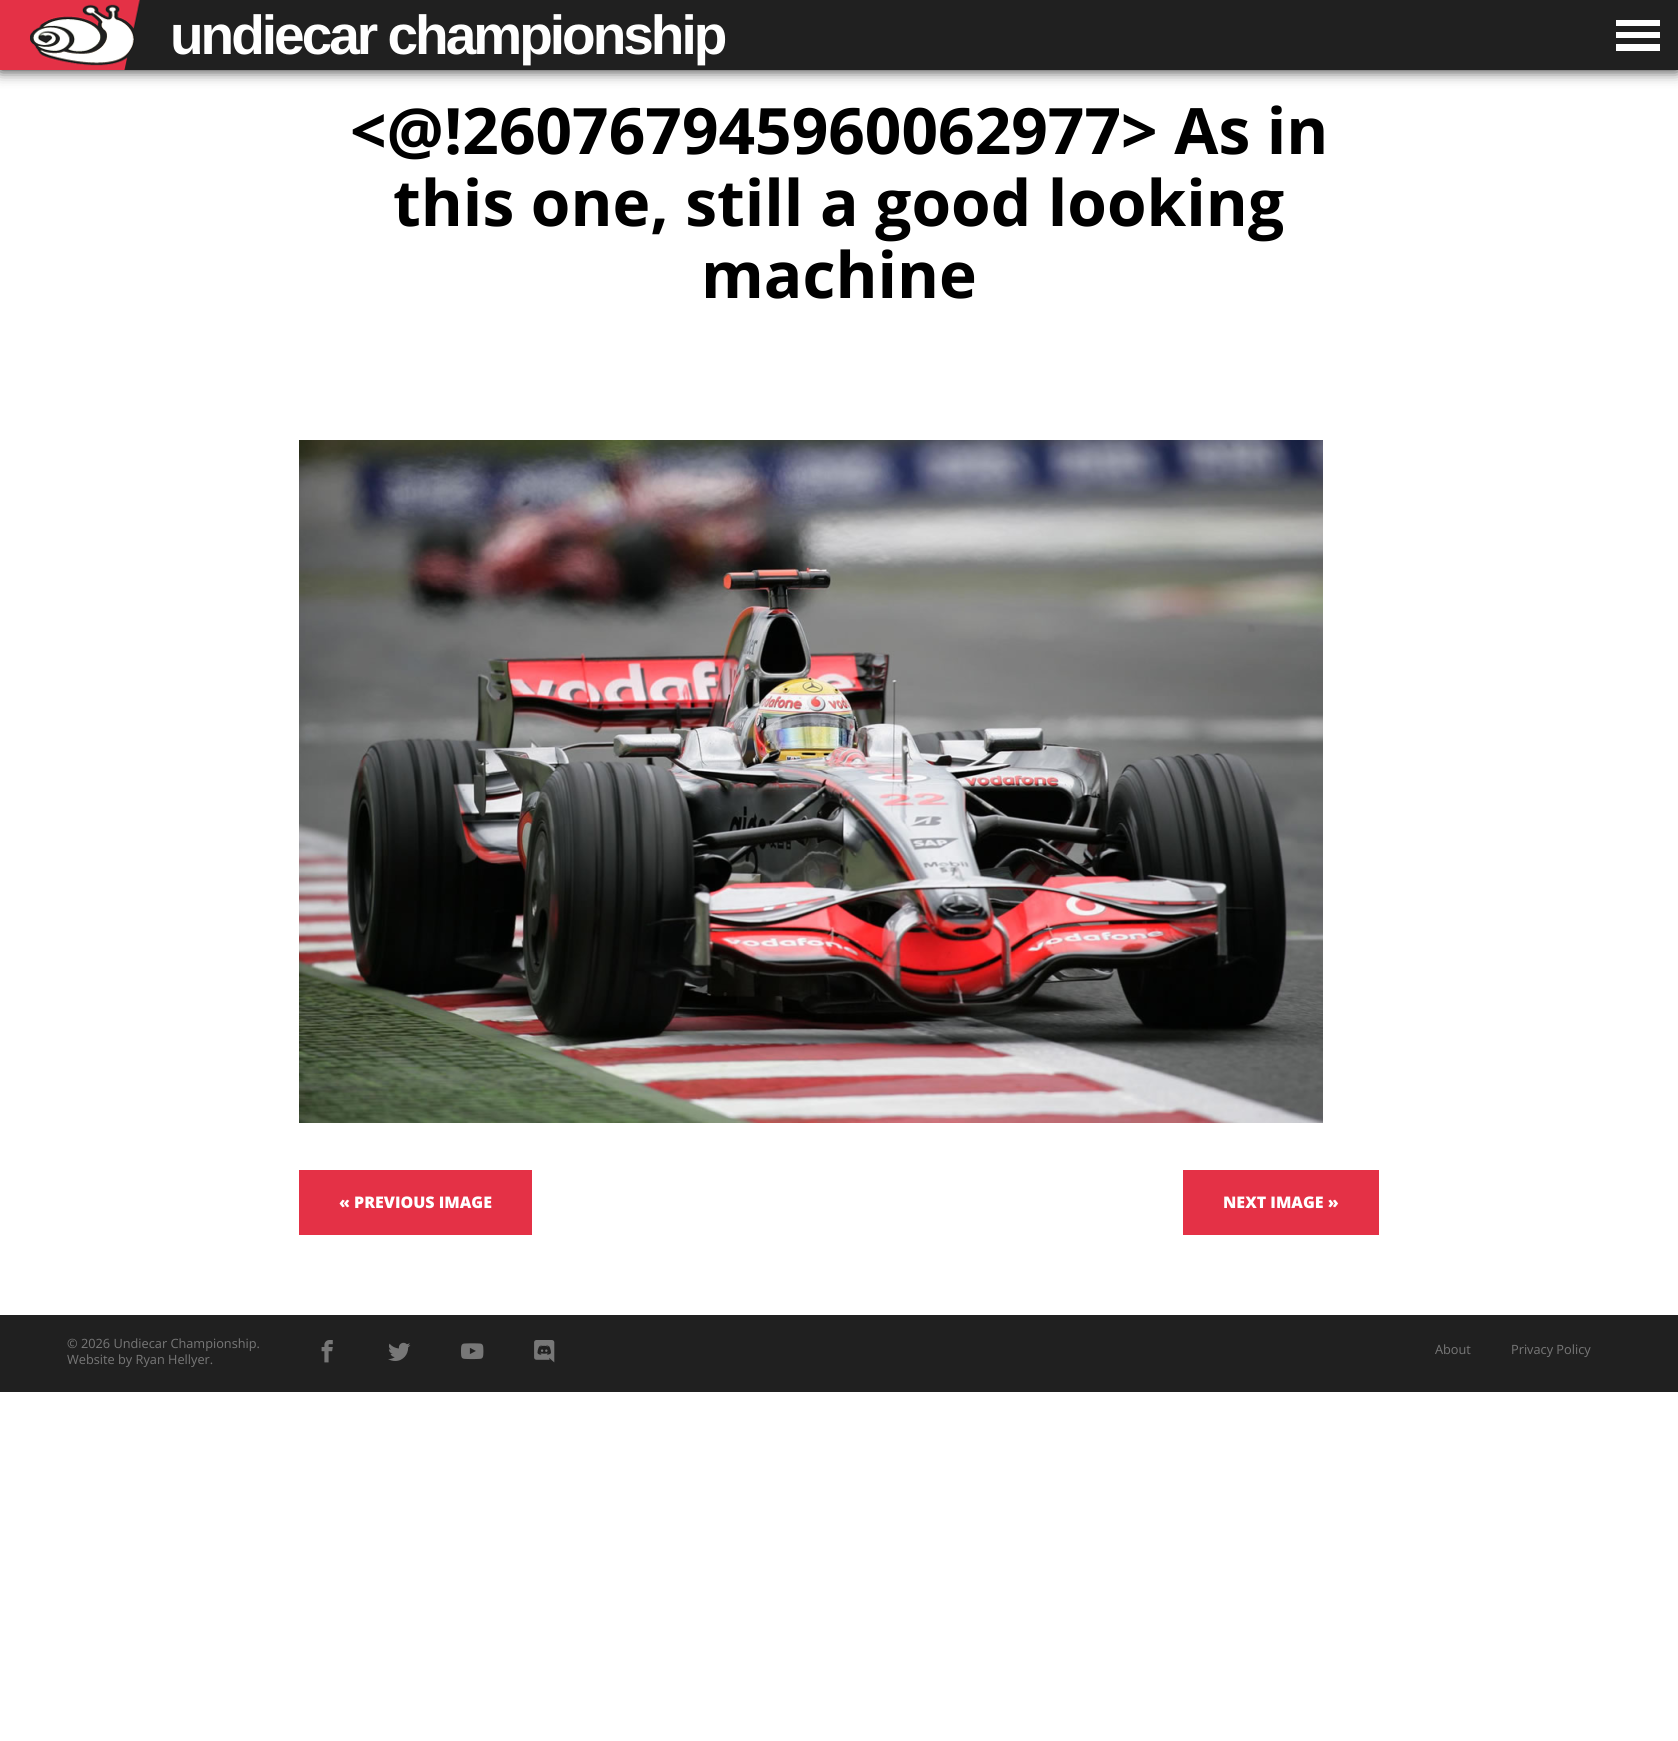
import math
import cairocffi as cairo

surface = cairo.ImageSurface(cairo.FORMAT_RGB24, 1678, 1741)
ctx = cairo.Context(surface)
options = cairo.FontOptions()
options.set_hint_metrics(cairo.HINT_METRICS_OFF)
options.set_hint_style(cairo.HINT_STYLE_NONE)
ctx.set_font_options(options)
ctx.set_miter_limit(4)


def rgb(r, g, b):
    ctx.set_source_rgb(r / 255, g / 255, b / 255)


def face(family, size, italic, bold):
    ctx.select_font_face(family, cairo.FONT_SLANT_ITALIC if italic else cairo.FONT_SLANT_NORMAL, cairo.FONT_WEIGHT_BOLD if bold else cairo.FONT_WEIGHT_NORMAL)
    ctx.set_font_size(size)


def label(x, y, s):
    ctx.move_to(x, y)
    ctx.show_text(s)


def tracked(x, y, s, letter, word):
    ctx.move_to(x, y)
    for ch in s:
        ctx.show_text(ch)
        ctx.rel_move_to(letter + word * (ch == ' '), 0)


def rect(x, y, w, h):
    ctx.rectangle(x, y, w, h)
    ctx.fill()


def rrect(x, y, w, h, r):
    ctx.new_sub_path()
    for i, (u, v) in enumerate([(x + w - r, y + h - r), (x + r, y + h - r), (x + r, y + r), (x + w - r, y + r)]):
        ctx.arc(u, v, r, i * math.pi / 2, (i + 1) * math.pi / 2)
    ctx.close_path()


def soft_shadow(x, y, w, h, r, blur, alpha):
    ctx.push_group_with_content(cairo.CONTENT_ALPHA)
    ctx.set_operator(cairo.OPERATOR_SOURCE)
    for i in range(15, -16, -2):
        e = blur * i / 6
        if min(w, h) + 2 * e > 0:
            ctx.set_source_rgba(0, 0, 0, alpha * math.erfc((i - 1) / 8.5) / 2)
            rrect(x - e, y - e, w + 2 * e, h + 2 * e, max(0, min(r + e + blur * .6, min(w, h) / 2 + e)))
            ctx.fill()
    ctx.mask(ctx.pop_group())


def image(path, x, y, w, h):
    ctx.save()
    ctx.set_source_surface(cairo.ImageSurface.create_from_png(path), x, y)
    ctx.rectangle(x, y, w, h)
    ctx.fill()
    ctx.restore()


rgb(255, 255, 255)
ctx.paint()
rgb(0, 0, 0)
soft_shadow(0, 0, 1678, 70, 0, 7.5, 0.9)
rgb(32, 32, 32)
rect(140, 0, 1538, 70)
image('image0.png', 30, 0, 110, 70)
rgb(228, 49, 70)
rect(0, 0, 30, 70)
face('Liberation Sans', 55, 0, 1)
rgb(255, 255, 255)
tracked(170, 54, 'undiecar championship', -3, 0)
ctx.new_path()
ctx.move_to(1616, 20)
ctx.line_to(1660, 20)
ctx.line_to(1660, 26)
ctx.line_to(1616, 26)
ctx.close_path()
ctx.move_to(1616, 32)
ctx.line_to(1660, 32)
ctx.line_to(1660, 38)
ctx.line_to(1616, 38)
ctx.close_path()
ctx.move_to(1616, 44)
ctx.line_to(1660, 44)
ctx.line_to(1660, 51)
ctx.line_to(1616, 51)
ctx.close_path()
ctx.fill()
face('Open Sans', 64, 0, 1)
rgb(0, 0, 0)
label(350, 154, '<@!260767945960062977> As in')
label(393, 226, 'this one, still a good looking')
label(701, 298, 'machine')
image('image1.png', 299, 440, 1024, 683)
rgb(228, 49, 70)
rect(299, 1170, 233, 65)
face('Open Sans ExtraBold', 16, 0, 0)
rgb(255, 255, 255)
label(339, 1208, '« PREVIOUS IMAGE')
rgb(228, 49, 70)
rect(1183, 1170, 196, 65)
rgb(255, 255, 255)
label(1223, 1208, 'NEXT IMAGE »')
rgb(32, 32, 32)
rect(0, 1315, 1678, 77)
face('Open Sans', 12.75, 0, 0)
rgb(119, 119, 119)
label(67, 1348, '© 2026 Undiecar Championship.')
label(67, 1364, 'Website by Ryan Hellyer.')
image('image2.png', 321, 1340, 12, 23)
image('image3.png', 388, 1342, 23, 19)
image('image4.png', 461, 1343, 23, 17)
image('image5.png', 534, 1340, 21, 23)
label(1435, 1354, 'About')
label(1511, 1354, 'Privacy Policy')
surface.write_to_png('render.png')
